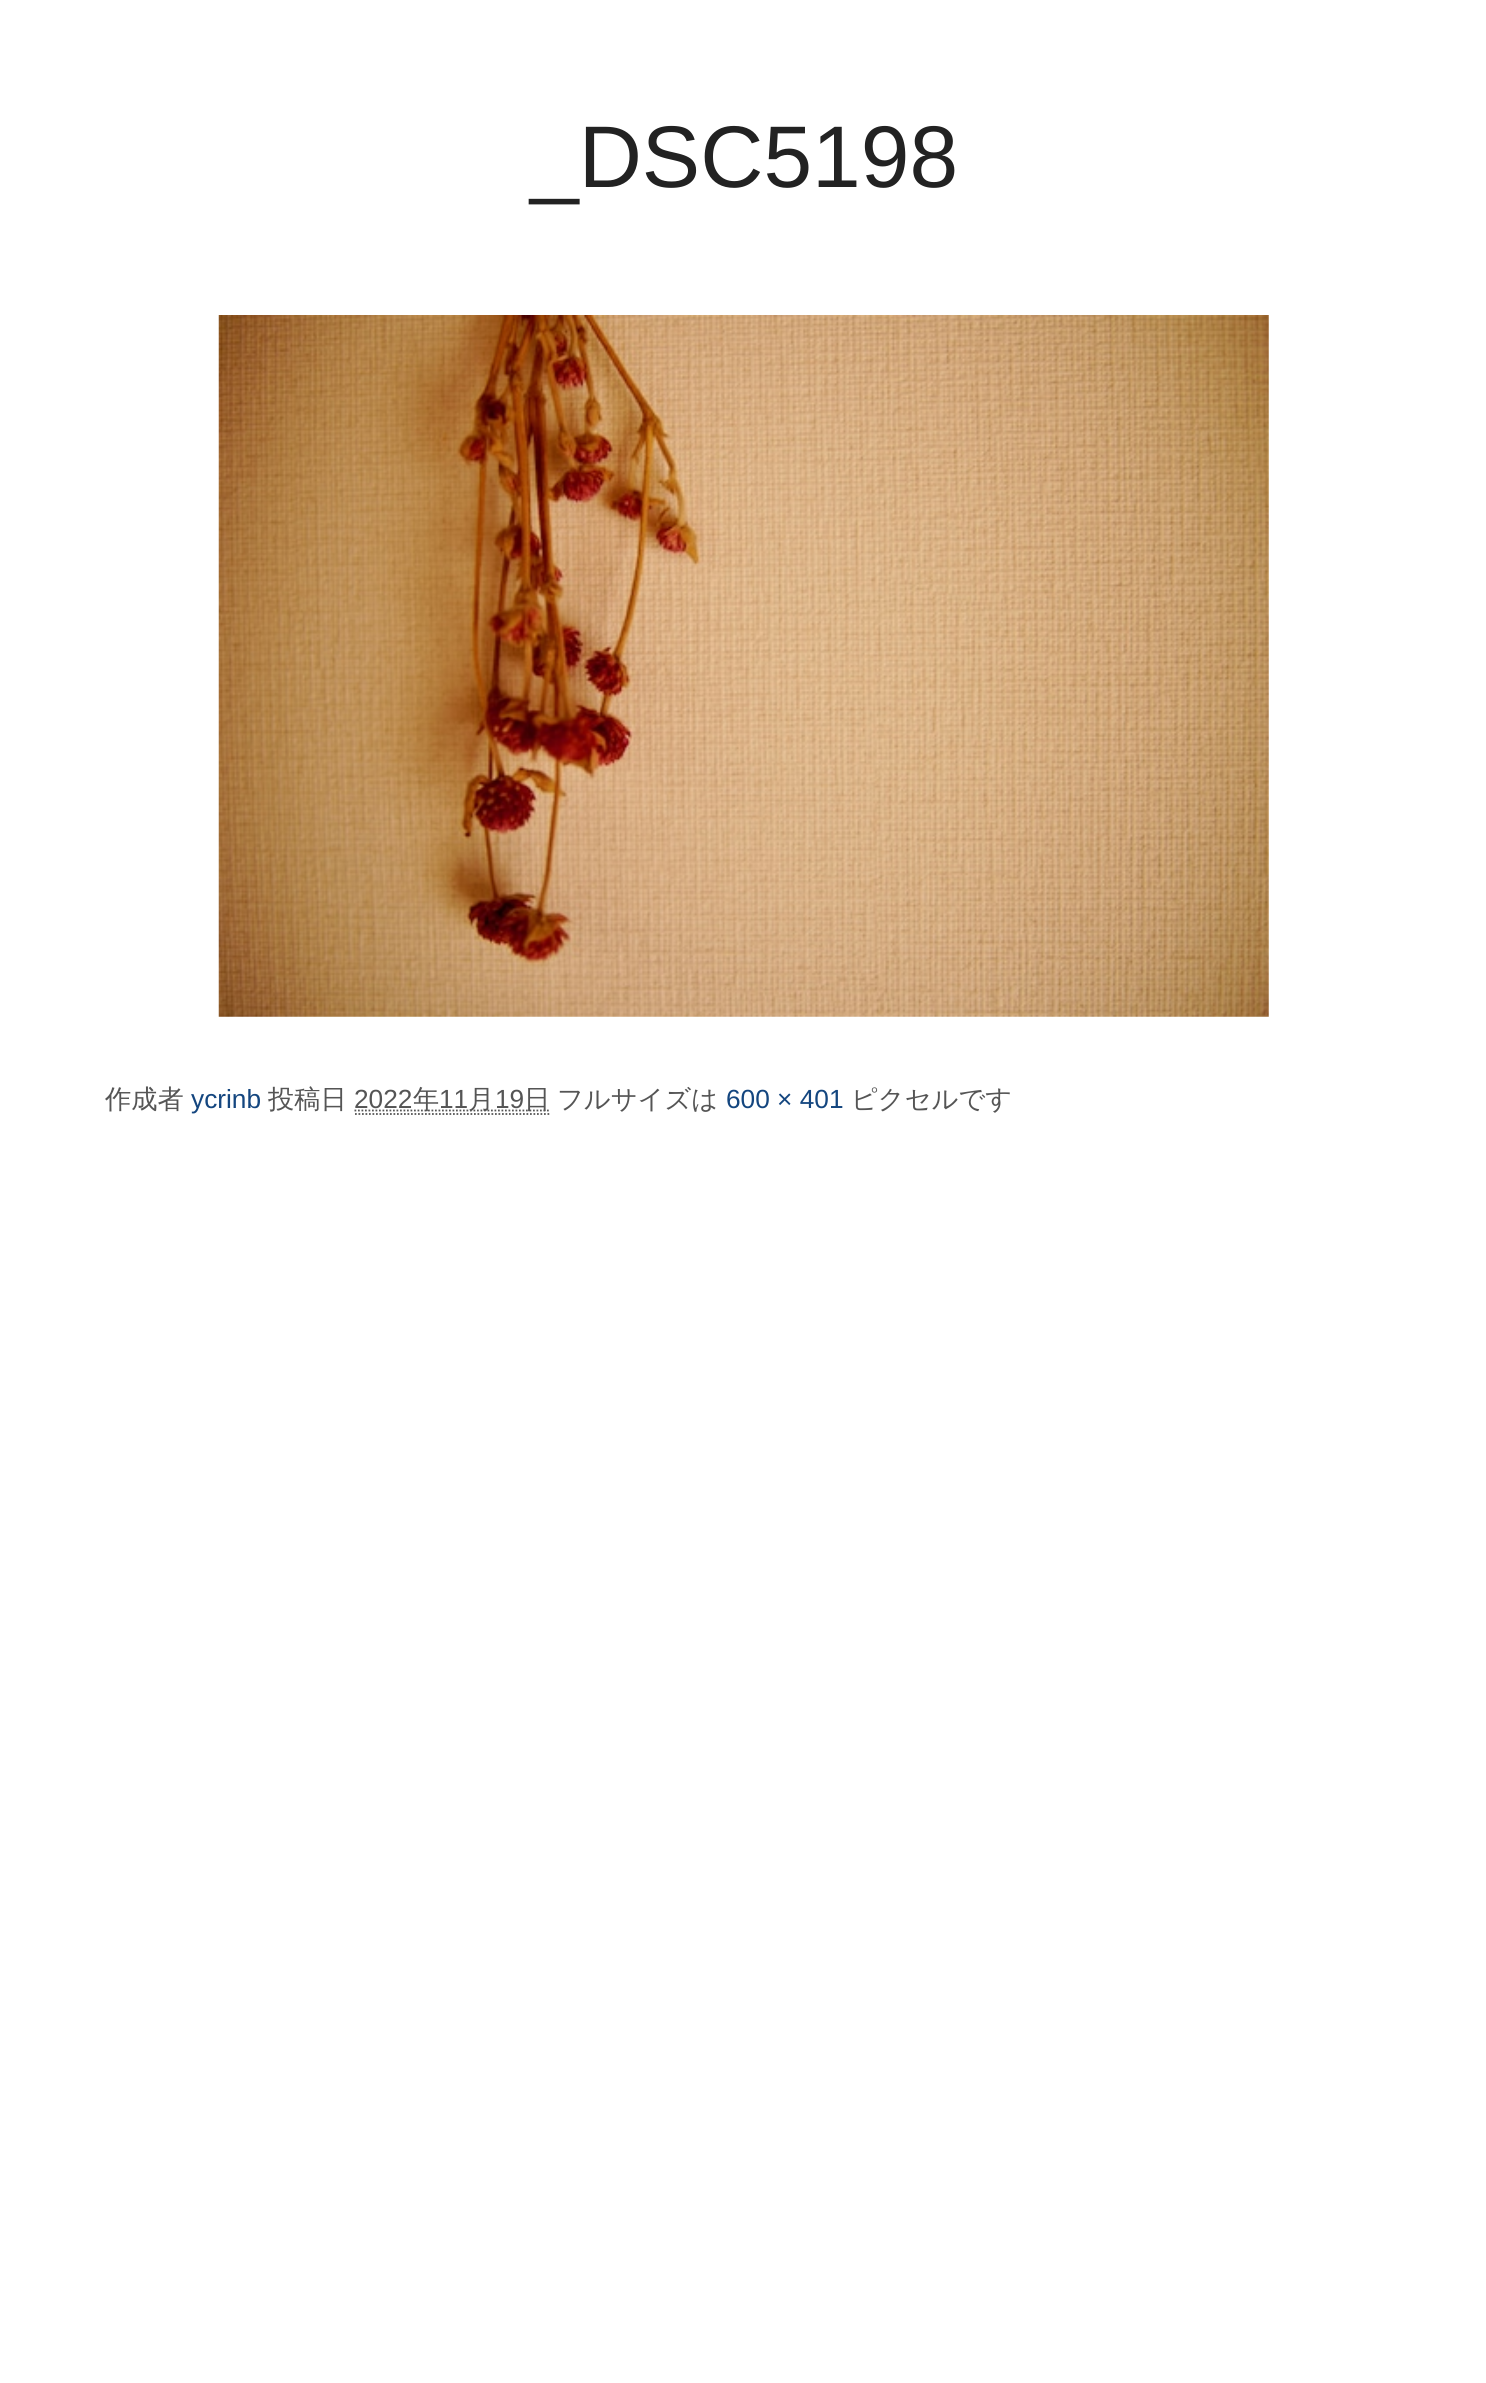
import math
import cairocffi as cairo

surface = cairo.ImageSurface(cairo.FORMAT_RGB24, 1486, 2383)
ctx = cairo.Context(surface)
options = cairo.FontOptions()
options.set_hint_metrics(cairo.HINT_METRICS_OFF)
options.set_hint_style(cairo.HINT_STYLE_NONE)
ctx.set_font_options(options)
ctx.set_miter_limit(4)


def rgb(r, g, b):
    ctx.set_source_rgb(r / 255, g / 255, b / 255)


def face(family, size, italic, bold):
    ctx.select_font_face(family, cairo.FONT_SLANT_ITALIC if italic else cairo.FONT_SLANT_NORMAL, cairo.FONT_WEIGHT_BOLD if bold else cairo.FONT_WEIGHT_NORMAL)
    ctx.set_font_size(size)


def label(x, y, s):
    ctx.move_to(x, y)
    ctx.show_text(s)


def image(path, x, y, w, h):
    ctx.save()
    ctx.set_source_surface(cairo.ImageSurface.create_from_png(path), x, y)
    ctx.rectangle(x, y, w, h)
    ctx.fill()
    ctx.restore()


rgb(255, 255, 255)
ctx.paint()
face('Liberation Sans', 87.5, 0, 0)
rgb(34, 34, 34)
label(530, 187, '_DSC5198')
image('image0.png', 218, 315, 1051, 702)
face('WenQuanYi Zen Hei Medium', 26.25, 0, 0)
rgb(85, 85, 85)
label(105, 1108, '作成者')
face('Liberation Sans', 26.25, 0, 0)
rgb(20, 70, 127)
label(191, 1108, 'ycrinb')
face('WenQuanYi Zen Hei Medium', 26.25, 0, 0)
rgb(85, 85, 85)
label(268, 1108, '投稿日')
face('Liberation Sans', 26.25, 0, 0)
label(354, 1108, '2022')
ctx.new_path()
ctx.move_to(354.5, 1110.5)
ctx.line_to(550, 1110.5)
ctx.set_line_width(1.8)
ctx.set_dash([1.75, 1.75])
ctx.stroke()
face('WenQuanYi Zen Hei Medium', 26.25, 0, 0)
label(413, 1108, '年')
face('Liberation Sans', 26.25, 0, 0)
label(439, 1108, '11')
face('WenQuanYi Zen Hei Medium', 26.25, 0, 0)
label(468, 1108, '月')
face('Liberation Sans', 26.25, 0, 0)
label(495, 1108, '19')
face('WenQuanYi Zen Hei Medium', 26.25, 0, 0)
label(524, 1108, '日')
ctx.new_path()
ctx.move_to(355, 1114)
ctx.line_to(549.5, 1114)
ctx.stroke()
label(557, 1108, 'フルサイズは')
face('Liberation Sans', 26.25, 0, 0)
rgb(20, 70, 127)
label(726, 1108, '600 × 401')
face('WenQuanYi Zen Hei Medium', 26.25, 0, 0)
rgb(85, 85, 85)
label(851, 1108, 'ピクセルです')
surface.write_to_png('render.png')
